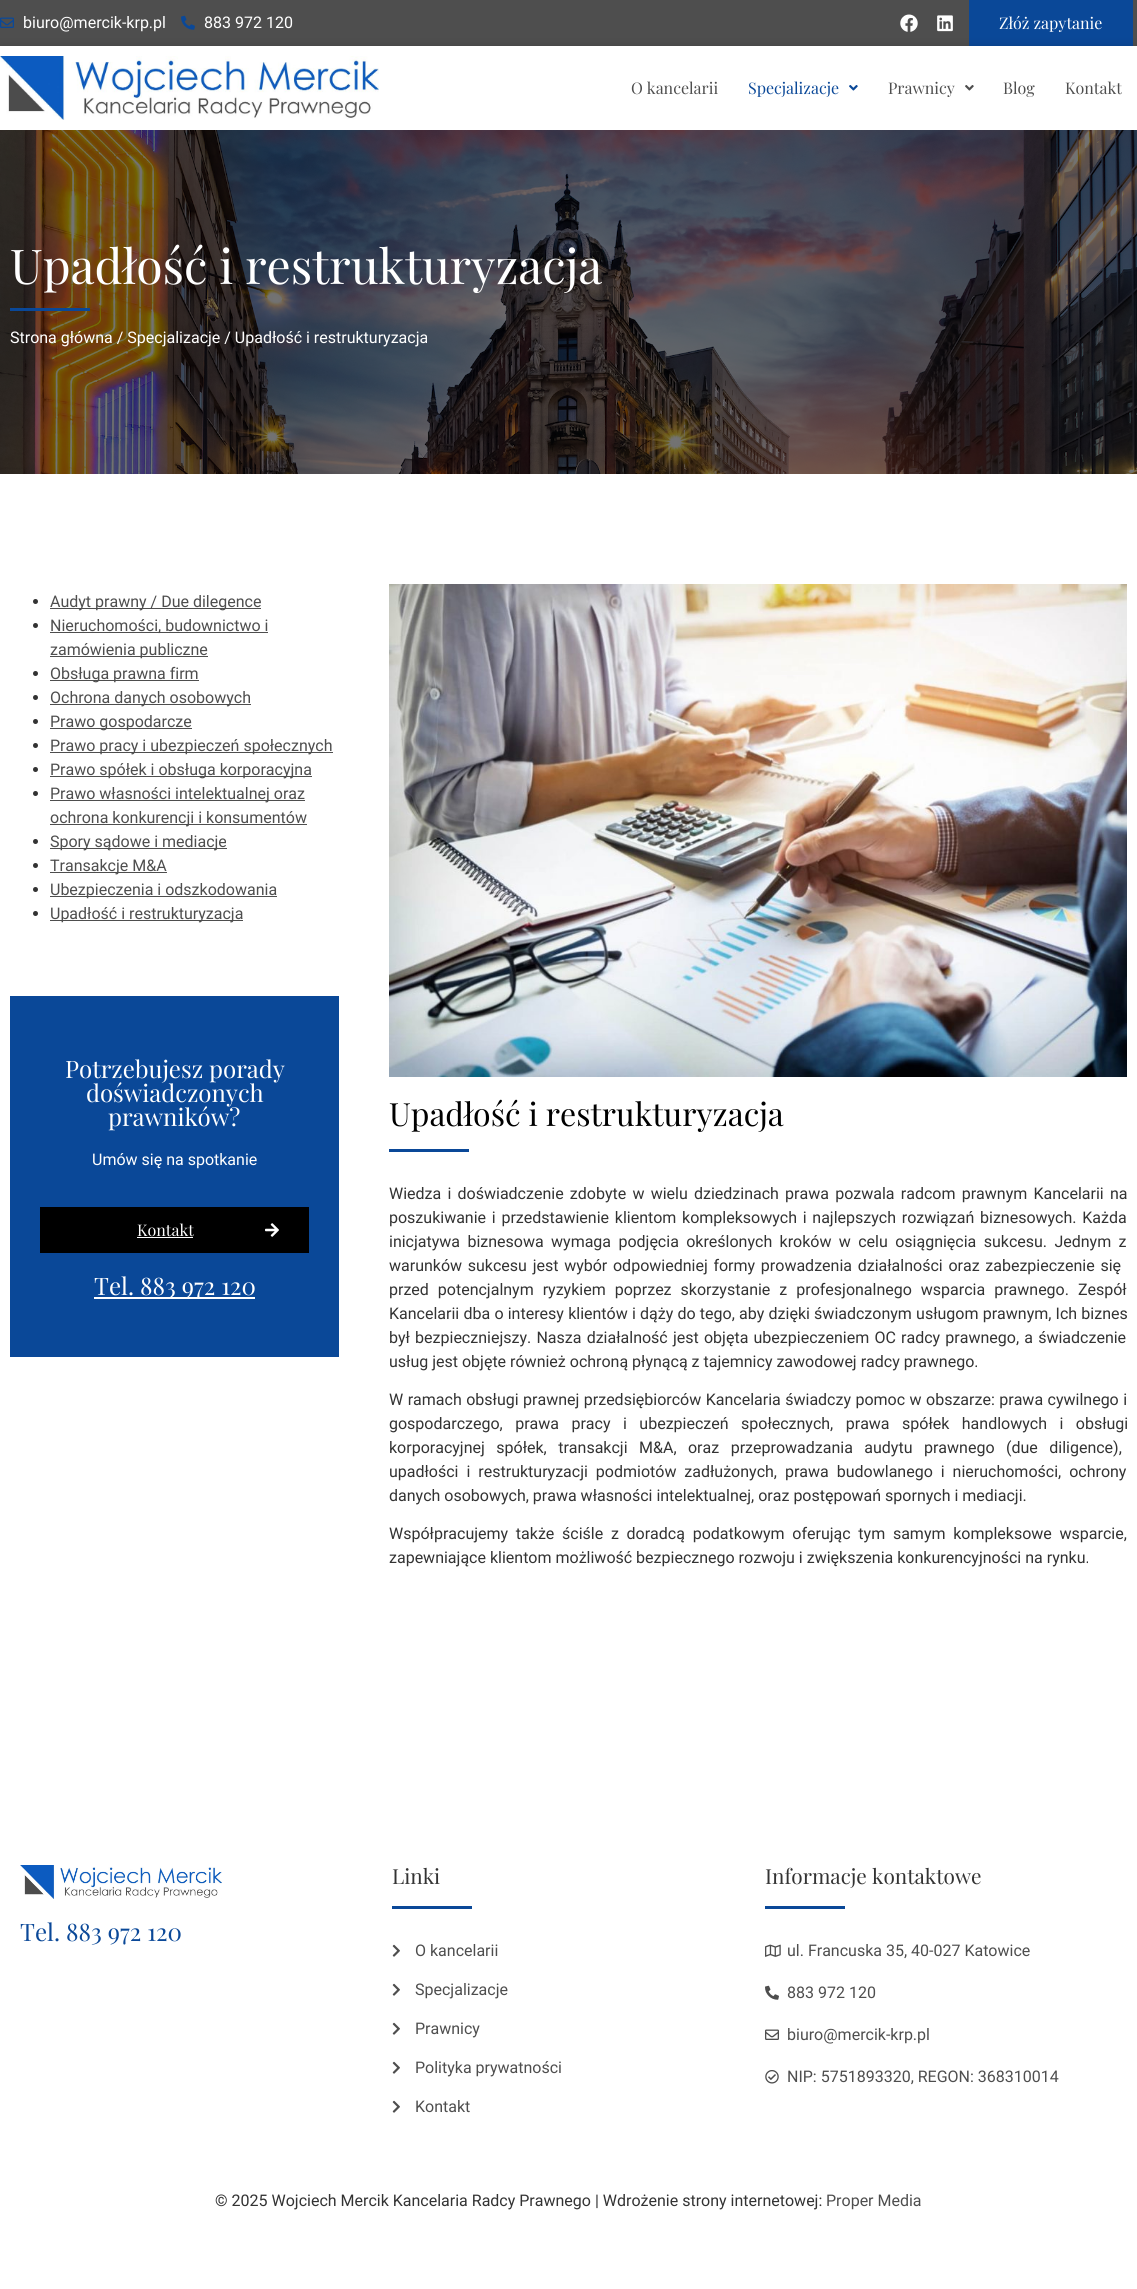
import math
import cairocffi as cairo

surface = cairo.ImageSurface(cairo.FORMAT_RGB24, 1137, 2289)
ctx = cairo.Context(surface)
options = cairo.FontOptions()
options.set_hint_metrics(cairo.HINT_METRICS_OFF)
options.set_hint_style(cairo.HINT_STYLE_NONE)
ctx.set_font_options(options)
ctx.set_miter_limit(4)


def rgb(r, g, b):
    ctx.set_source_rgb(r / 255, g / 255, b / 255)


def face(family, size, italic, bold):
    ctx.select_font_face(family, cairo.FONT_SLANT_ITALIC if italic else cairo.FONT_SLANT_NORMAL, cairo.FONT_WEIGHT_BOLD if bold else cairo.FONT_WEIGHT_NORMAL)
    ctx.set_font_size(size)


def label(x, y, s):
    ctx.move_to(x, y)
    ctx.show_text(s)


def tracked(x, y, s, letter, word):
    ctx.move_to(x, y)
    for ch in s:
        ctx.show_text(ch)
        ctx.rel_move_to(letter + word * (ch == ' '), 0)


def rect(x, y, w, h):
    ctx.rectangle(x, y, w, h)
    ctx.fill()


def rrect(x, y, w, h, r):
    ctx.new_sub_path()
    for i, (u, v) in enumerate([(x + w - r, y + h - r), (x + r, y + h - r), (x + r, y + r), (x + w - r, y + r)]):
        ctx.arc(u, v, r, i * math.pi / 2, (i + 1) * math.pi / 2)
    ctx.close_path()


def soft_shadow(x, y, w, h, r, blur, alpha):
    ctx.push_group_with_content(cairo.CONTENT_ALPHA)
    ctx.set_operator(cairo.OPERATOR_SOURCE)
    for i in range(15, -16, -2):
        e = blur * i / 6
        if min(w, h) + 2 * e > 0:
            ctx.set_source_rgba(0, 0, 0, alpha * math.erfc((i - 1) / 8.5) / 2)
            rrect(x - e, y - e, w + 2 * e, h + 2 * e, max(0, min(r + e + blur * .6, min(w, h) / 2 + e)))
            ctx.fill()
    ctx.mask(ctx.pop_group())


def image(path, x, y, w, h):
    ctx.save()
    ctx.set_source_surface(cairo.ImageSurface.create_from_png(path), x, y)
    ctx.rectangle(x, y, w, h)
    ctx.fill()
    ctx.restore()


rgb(255, 255, 255)
ctx.paint()
rgb(78, 78, 78)
rect(0, 0, 1137, 46)
image('image0.png', 0, 17, 14, 11)
face('Roboto', 16, 0, 0)
rgb(255, 255, 255)
label(23, 28, 'biuro@mercik-krp.pl')
image('image1.png', 181, 15, 14, 15)
label(204, 28, '883 972 120')
image('image2.png', 900, 14, 18, 18)
image('image3.png', 937, 15, 16, 17)
rgb(10, 72, 152)
rect(969, 0, 164, 46)
face('Playfair Display', 16, 0, 0)
rgb(255, 255, 255)
label(999, 29, 'Złóż zapytanie')
rgb(0, 0, 0)
soft_shadow(0, 46, 1137, 84, 0, 5, 0.15)
rgb(255, 255, 255)
rect(0, 46, 1137, 84)
image('image4.png', 0, 56, 379, 64)
rgb(78, 78, 78)
label(631, 94, 'O kancelarii')
rgb(10, 72, 152)
label(748, 94, 'Specjalizacje')
image('image5.png', 849, 85, 9, 6)
rgb(78, 78, 78)
label(888, 94, 'Prawnicy')
image('image6.png', 965, 85, 9, 6)
label(1003, 94, 'Blog')
label(1065, 94, 'Kontakt')
image('image7.png', 0, 130, 1137, 344)
face('Playfair Display', 48, 0, 0)
rgb(255, 255, 255)
label(10, 284, 'Upadłość i restrukturyzacja')
rgb(10, 72, 152)
rect(10, 308, 80, 3)
face('Roboto', 16, 0, 0)
rgb(255, 255, 255)
label(10, 343, 'Strona główna / Specjalizacje / Upadłość i restrukturyzacja')
rgb(51, 51, 51)
ctx.new_path()
ctx.arc(35.5, 601.5, 2.5, 0, 2 * math.pi)
ctx.fill()
rgb(78, 78, 78)
rect(50, 608, 211, 1)
label(50, 607, 'Audyt prawny / Due dilegence')
rgb(51, 51, 51)
ctx.new_path()
ctx.arc(35.5, 625.5, 2.5, 0, 2 * math.pi)
ctx.fill()
rgb(78, 78, 78)
rect(50, 632, 218, 1)
label(50, 631, 'Nieruchomości, budownictwo i')
rect(50, 656, 158, 1)
label(50, 655, 'zamówienia publiczne')
rgb(51, 51, 51)
ctx.new_path()
ctx.arc(35.5, 673.5, 2.5, 0, 2 * math.pi)
ctx.fill()
rgb(78, 78, 78)
rect(50, 680, 149, 1)
label(50, 679, 'Obsługa prawna firm')
rgb(51, 51, 51)
ctx.new_path()
ctx.arc(35.5, 697.5, 2.5, 0, 2 * math.pi)
ctx.fill()
rgb(78, 78, 78)
rect(50, 704, 201, 1)
label(50, 703, 'Ochrona danych osobowych')
rgb(51, 51, 51)
ctx.new_path()
ctx.arc(35.5, 721.5, 2.5, 0, 2 * math.pi)
ctx.fill()
rgb(78, 78, 78)
rect(50, 728, 142, 1)
label(50, 727, 'Prawo gospodarcze')
rgb(51, 51, 51)
ctx.new_path()
ctx.arc(35.5, 745.5, 2.5, 0, 2 * math.pi)
ctx.fill()
rgb(78, 78, 78)
rect(50, 752, 283, 1)
label(50, 751, 'Prawo pracy i ubezpieczeń społecznych')
rgb(51, 51, 51)
ctx.new_path()
ctx.arc(35.5, 769.5, 2.5, 0, 2 * math.pi)
ctx.fill()
rgb(78, 78, 78)
rect(50, 776, 262, 1)
label(50, 775, 'Prawo spółek i obsługa korporacyjna')
rgb(51, 51, 51)
ctx.new_path()
ctx.arc(35.5, 793.5, 2.5, 0, 2 * math.pi)
ctx.fill()
rgb(78, 78, 78)
rect(50, 800, 255, 1)
label(50, 799, 'Prawo własności intelektualnej oraz')
rect(50, 824, 257, 1)
label(50, 823, 'ochrona konkurencji i konsumentów')
rgb(51, 51, 51)
ctx.new_path()
ctx.arc(35.5, 841.5, 2.5, 0, 2 * math.pi)
ctx.fill()
rgb(78, 78, 78)
rect(50, 848, 177, 1)
label(50, 847, 'Spory sądowe i mediacje')
rgb(51, 51, 51)
ctx.new_path()
ctx.arc(35.5, 865.5, 2.5, 0, 2 * math.pi)
ctx.fill()
rgb(78, 78, 78)
rect(50, 872, 117, 1)
label(50, 871, 'Transakcje M&A')
rgb(51, 51, 51)
ctx.new_path()
ctx.arc(35.5, 889.5, 2.5, 0, 2 * math.pi)
ctx.fill()
rgb(78, 78, 78)
rect(50, 896, 227, 1)
label(50, 895, 'Ubezpieczenia i odszkodowania')
rgb(51, 51, 51)
ctx.new_path()
ctx.arc(35.5, 913.5, 2.5, 0, 2 * math.pi)
ctx.fill()
rgb(78, 78, 78)
rect(50, 920, 193, 1)
label(50, 919, 'Upadłość i restrukturyzacja')
rgb(10, 72, 152)
rect(10, 996, 329, 361)
face('Playfair Display', 24, 0, 0)
rgb(255, 255, 255)
label(65, 1078, 'Potrzebujesz porady')
label(86, 1102, 'doświadczonych')
label(108, 1126, 'prawników?')
face('Roboto', 16, 0, 0)
label(92, 1165, 'Umów się na spotkanie')
rgb(0, 0, 0)
rect(40, 1207, 269, 46)
face('Playfair Display', 16, 0, 0)
rgb(255, 255, 255)
label(137, 1236, 'Kontakt')
rect(137, 1237, 56, 1)
image('image8.png', 265, 1223, 14, 14)
rect(94, 1297, 161, 2)
face('Playfair Display', 24, 0, 0)
label(94, 1295, 'Tel. 883 972 120')
image('image9.png', 389, 584, 738, 493)
face('Playfair Display', 32, 0, 0)
rgb(0, 0, 0)
label(389, 1126, 'Upadłość i restrukturyzacja')
rgb(10, 72, 152)
rect(389, 1149, 80, 3)
face('Roboto', 16, 0, 0)
rgb(51, 51, 51)
tracked(389, 1199, 'Wiedza i doświadczenie zdobyte w wielu dziedzinach prawa pozwala radcom prawnym Kancelarii na', 0, 2.25)
tracked(389, 1223, 'poszukiwanie i przedstawienie klientom kompleksowych i najlepszych rozwiązań biznesowych. Każda', 0, 1.75)
tracked(389, 1247, 'inicjatywa biznesowa wymaga podjęcia określonych kroków w celu osiągnięcia sukcesu. Jednym z', 0, 3.4)
tracked(389, 1271, 'warunków sukcesu jest wybór odpowiedniej formy prowadzenia działalności oraz zabezpieczenie się', 0, 1.75)
tracked(389, 1295, 'przed potencjalnym ryzykiem poprzez skorzystanie z profesjonalnego wsparcia prawnego. Zespół', 0, 5)
tracked(389, 1319, 'Kancelarii dba o interesy klientów i dąży do tego, aby dzięki świadczonym usługom prawnym, Ich biznes', 0, 0.25)
tracked(389, 1343, 'był bezpieczniejszy. Nasza działalność jest objęta ubezpieczeniem OC radcy prawnego, a świadczenie', 0, 1.25)
label(389, 1367, 'usług jest objęte również ochroną płynącą z tajemnicy zawodowej radcy prawnego.')
tracked(389, 1405, 'W ramach obsługi prawnej przedsiębiorców Kancelaria świadczy pomoc w obszarze: prawa cywilnego i', 0, 0.5)
tracked(389, 1429, 'gospodarczego, prawa pracy i ubezpieczeń społecznych, prawa spółek handlowych i obsługi', 0, 8.5)
tracked(389, 1453, 'korporacyjnej spółek, transakcji M&A, oraz przeprowadzania audytu prawnego (due diligence),', 0, 7.5)
tracked(389, 1477, 'upadłości i restrukturyzacji podmiotów zadłużonych, prawa budowlanego i nieruchomości, ochrony', 0, 4)
label(389, 1501, 'danych osobowych, prawa własności intelektualnej, oraz postępowań spornych i mediacji.')
tracked(389, 1539, 'Współpracujemy także ściśle z doradcą podatkowym oferując tym samym kompleksowe wsparcie,', 0, 3.75)
label(389, 1563, 'zapewniające klientom możliwość bezpiecznego rozwoju i zwiększenia konkurencyjności na rynku.')
image('image10.png', 20, 1865, 202, 34)
face('Playfair Display', 24, 0, 0)
rgb(10, 72, 152)
label(20, 1941, 'Tel. 883 972 120')
face('Playfair Display', 20.75, 0, 0)
rgb(51, 51, 51)
label(392, 1884, 'Linki')
rgb(10, 72, 152)
rect(392, 1906, 80, 3)
image('image11.png', 392, 1944, 8, 13)
face('Roboto', 16, 0, 0)
rgb(78, 78, 78)
label(415, 1956, 'O kancelarii')
image('image11.png', 392, 1983, 8, 13)
label(415, 1995, 'Specjalizacje')
image('image11.png', 392, 2022, 8, 13)
label(415, 2034, 'Prawnicy')
image('image11.png', 392, 2061, 8, 13)
label(415, 2073, 'Polityka prywatności')
image('image11.png', 392, 2100, 8, 13)
label(415, 2112, 'Kontakt')
face('Playfair Display', 20.75, 0, 0)
rgb(51, 51, 51)
label(765, 1884, 'Informacje kontaktowe')
rgb(10, 72, 152)
rect(765, 1906, 80, 3)
image('image12.png', 765, 1944, 16, 13)
face('Roboto', 16, 0, 0)
rgb(78, 78, 78)
label(787, 1956, 'ul. Francuska 35, 40-027 Katowice')
image('image13.png', 765, 1985, 14, 15)
label(787, 1998, '883 972 120')
image('image14.png', 765, 2029, 14, 11)
label(787, 2040, 'biuro@mercik-krp.pl')
image('image15.png', 765, 2070, 14, 14)
label(787, 2082, 'NIP: 5751893320, REGON: 368310014')
rgb(51, 51, 51)
label(215, 2206, '© 2025 Wojciech Mercik Kancelaria Radcy Prawnego | Wdrożenie strony internetowej:')
rgb(78, 78, 78)
label(826, 2206, 'Proper Media')
surface.write_to_png('render.png')
